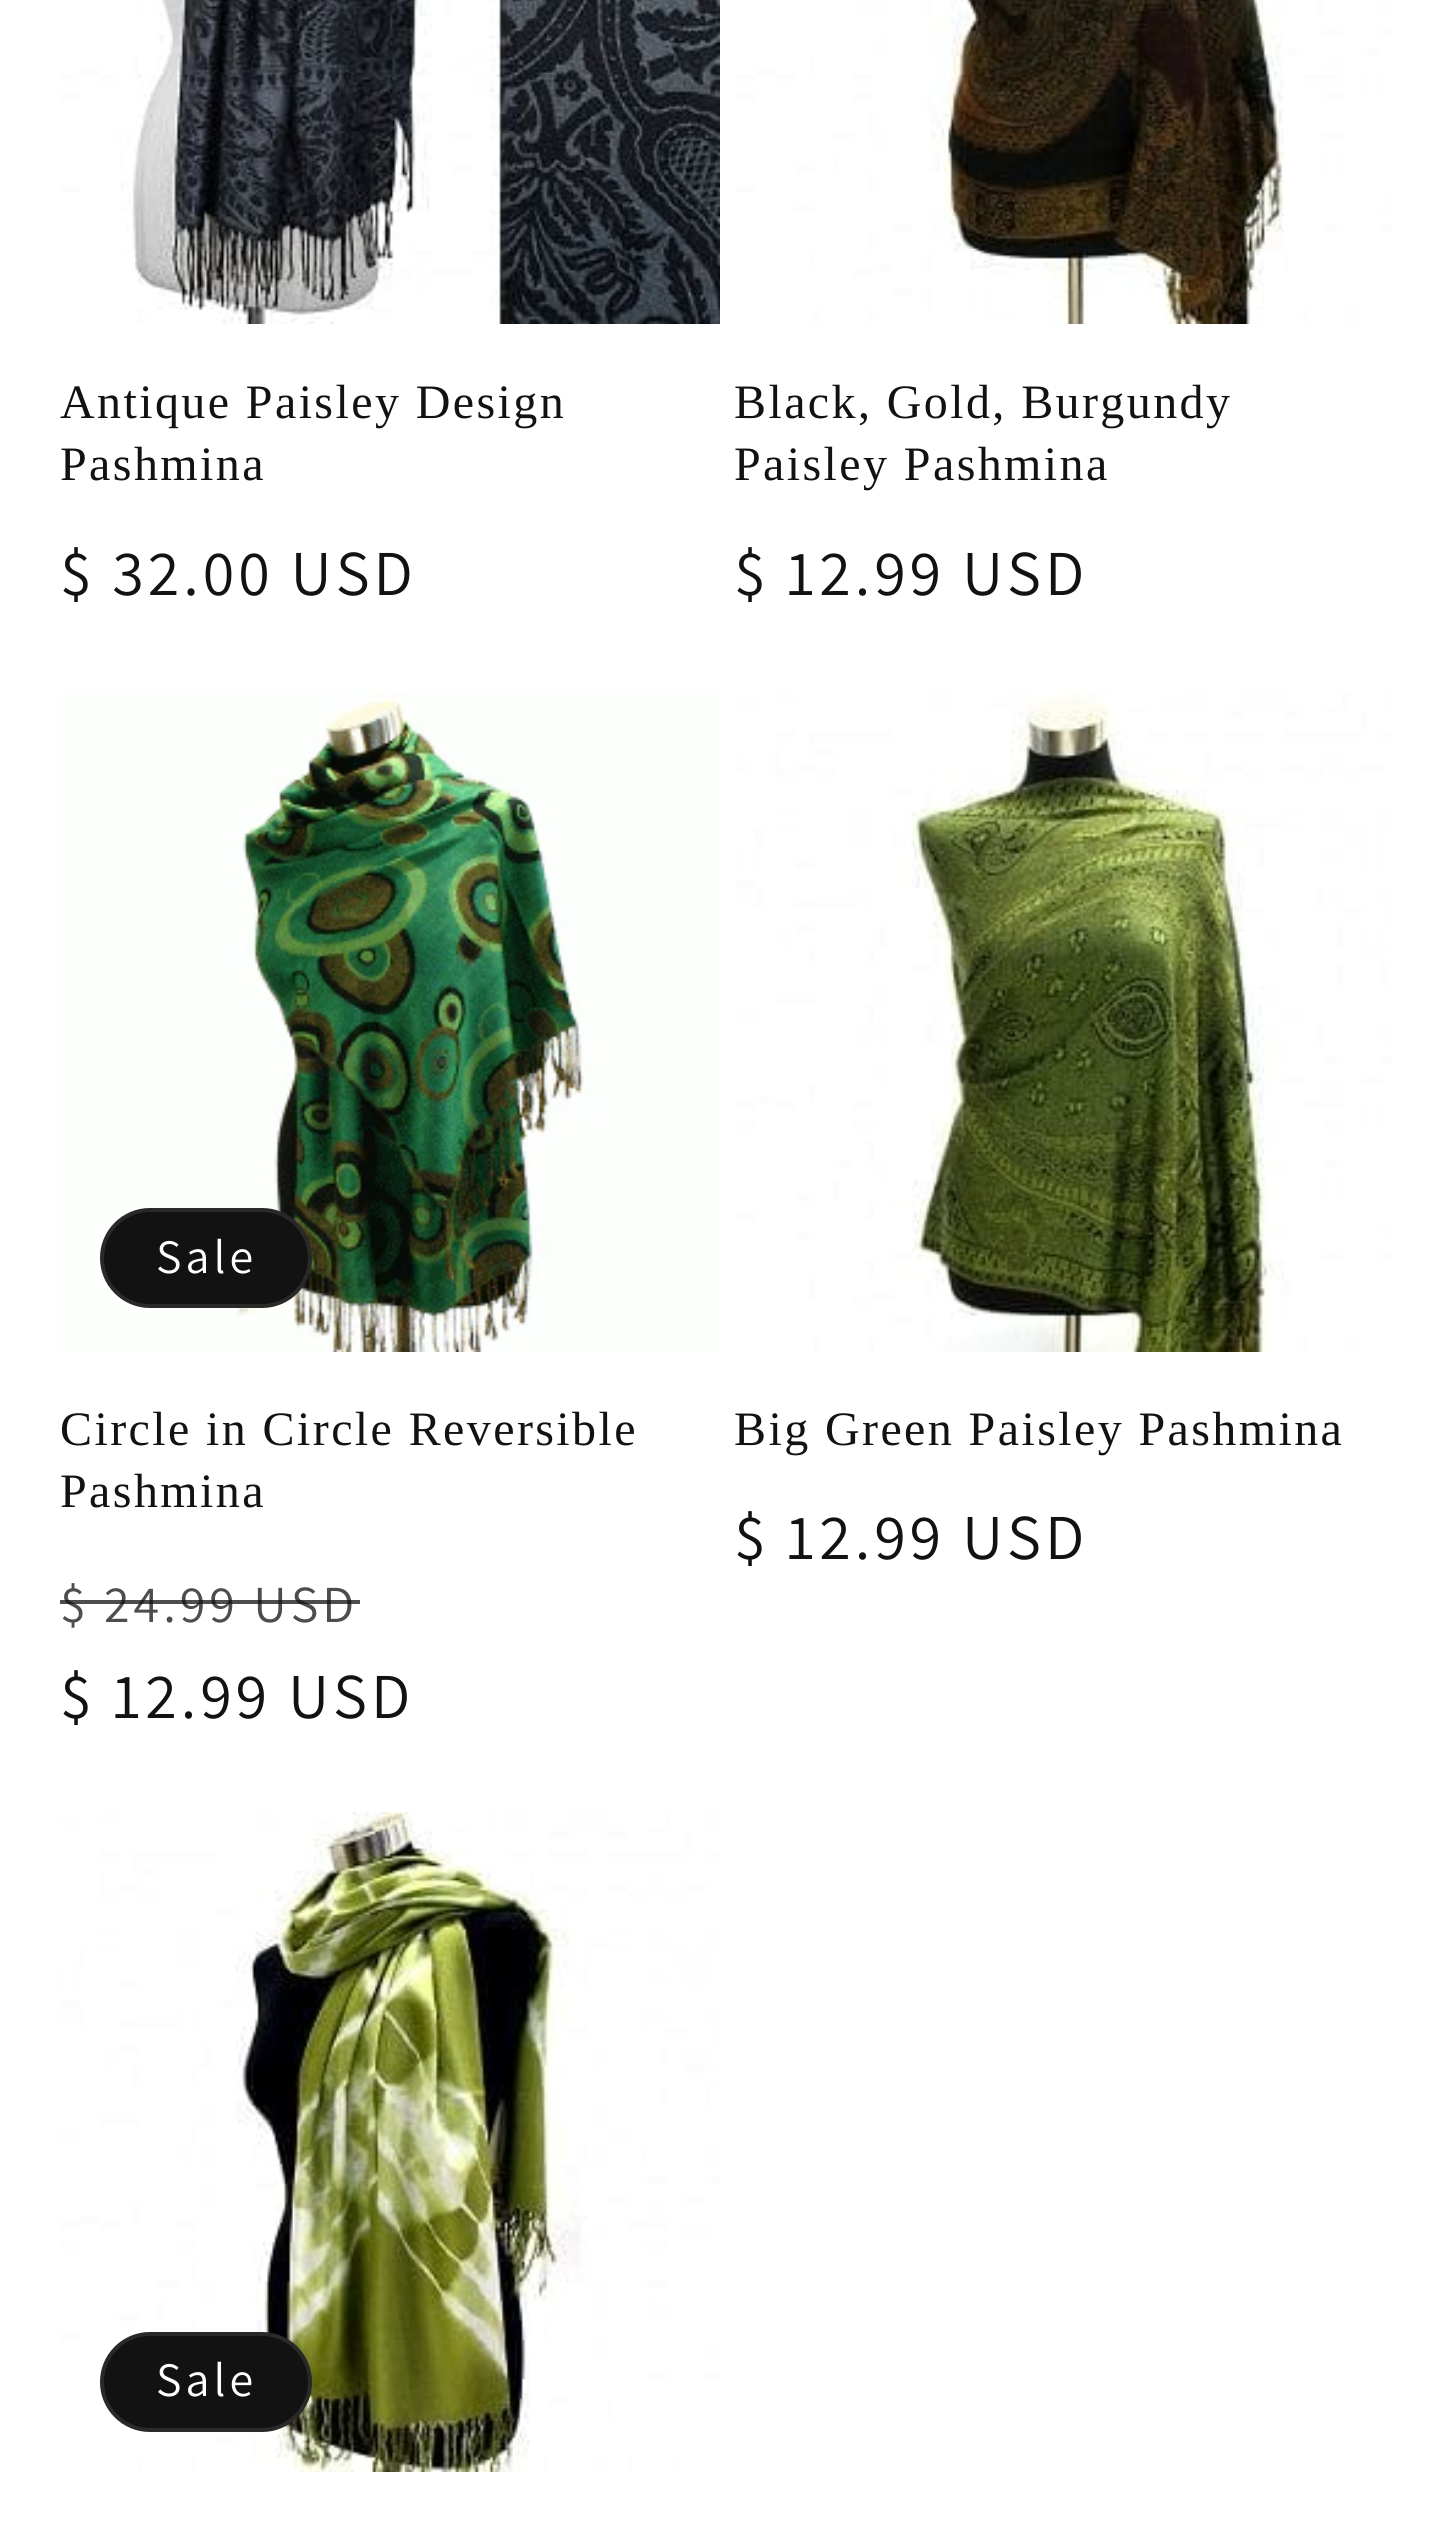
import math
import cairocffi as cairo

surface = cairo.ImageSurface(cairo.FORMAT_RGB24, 1450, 2541)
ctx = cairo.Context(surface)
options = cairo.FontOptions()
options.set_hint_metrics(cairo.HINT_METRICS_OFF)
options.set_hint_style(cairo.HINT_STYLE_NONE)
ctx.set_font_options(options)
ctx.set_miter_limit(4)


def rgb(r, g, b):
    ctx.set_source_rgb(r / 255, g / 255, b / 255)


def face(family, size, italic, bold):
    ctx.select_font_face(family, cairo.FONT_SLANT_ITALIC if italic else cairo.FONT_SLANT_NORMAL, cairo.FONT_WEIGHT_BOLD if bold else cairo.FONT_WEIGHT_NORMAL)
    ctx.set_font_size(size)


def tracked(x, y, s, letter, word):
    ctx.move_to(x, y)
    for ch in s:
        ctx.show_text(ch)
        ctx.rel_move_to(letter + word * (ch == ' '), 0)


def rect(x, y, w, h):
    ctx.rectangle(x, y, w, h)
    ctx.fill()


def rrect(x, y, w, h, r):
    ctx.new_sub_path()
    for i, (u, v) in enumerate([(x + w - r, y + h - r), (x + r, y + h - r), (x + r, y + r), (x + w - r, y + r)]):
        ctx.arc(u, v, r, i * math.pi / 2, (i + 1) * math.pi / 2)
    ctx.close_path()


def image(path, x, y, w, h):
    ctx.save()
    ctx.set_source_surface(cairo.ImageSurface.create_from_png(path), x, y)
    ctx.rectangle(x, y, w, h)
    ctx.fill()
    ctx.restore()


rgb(255, 255, 255)
ctx.paint()
image('image0.png', 60, 0, 660, 324)
face('Liberation Serif', 48, 0, 0)
rgb(18, 18, 18)
tracked(60, 418, 'Antique Paisley Design', 2.4, 0)
tracked(60, 480, 'Pashmina', 2.4, 0)
face('Assistant', 64, 0, 0)
tracked(60, 595, '$ 32.00 USD', 4, 0)
image('image1.png', 736, 0, 656, 324)
face('Liberation Serif', 48, 0, 0)
tracked(734, 418, 'Black, Gold, Burgundy', 2.4, 0)
tracked(734, 480, 'Paisley Pashmina', 2.4, 0)
face('Assistant', 64, 0, 0)
tracked(734, 595, '$ 12.99 USD', 4, 0)
image('image2.png', 60, 692, 660, 660)
rrect(100, 1208, 212, 100, 50)
ctx.fill()
rrect(102, 1210, 208, 96, 48)
ctx.set_source_rgba(1, 1, 1, 0.1)
ctx.set_line_width(4)
ctx.stroke()
face('Assistant', 48, 0, 0)
rgb(255, 255, 255)
tracked(156, 1273, 'Sale', 4, 0)
face('Liberation Serif', 48, 0, 0)
rgb(18, 18, 18)
tracked(60, 1445, 'Circle in Circle Reversible', 2.4, 0)
tracked(60, 1507, 'Pashmina', 2.4, 0)
face('Assistant', 52, 0, 0)
rgb(77, 77, 77)
tracked(60, 1622, '$ 24.99 USD', 4, 0)
ctx.set_source_rgba(0.071, 0.071, 0.071, 0.75)
rect(60, 1600, 300, 4)
face('Assistant', 64, 0, 0)
rgb(18, 18, 18)
tracked(60, 1718, '$ 12.99 USD', 4, 0)
image('image3.png', 736, 692, 656, 660)
face('Liberation Serif', 48, 0, 0)
tracked(734, 1445, 'Big Green Paisley Pashmina', 2.4, 0)
face('Assistant', 64, 0, 0)
tracked(734, 1559, '$ 12.99 USD', 4, 0)
image('image4.png', 60, 1812, 660, 660)
rrect(100, 2332, 212, 100, 50)
ctx.fill()
rrect(102, 2334, 208, 96, 48)
ctx.set_source_rgba(1, 1, 1, 0.1)
ctx.stroke()
face('Assistant', 48, 0, 0)
rgb(255, 255, 255)
tracked(156, 2396, 'Sale', 4, 0)
surface.write_to_png('render.png')
